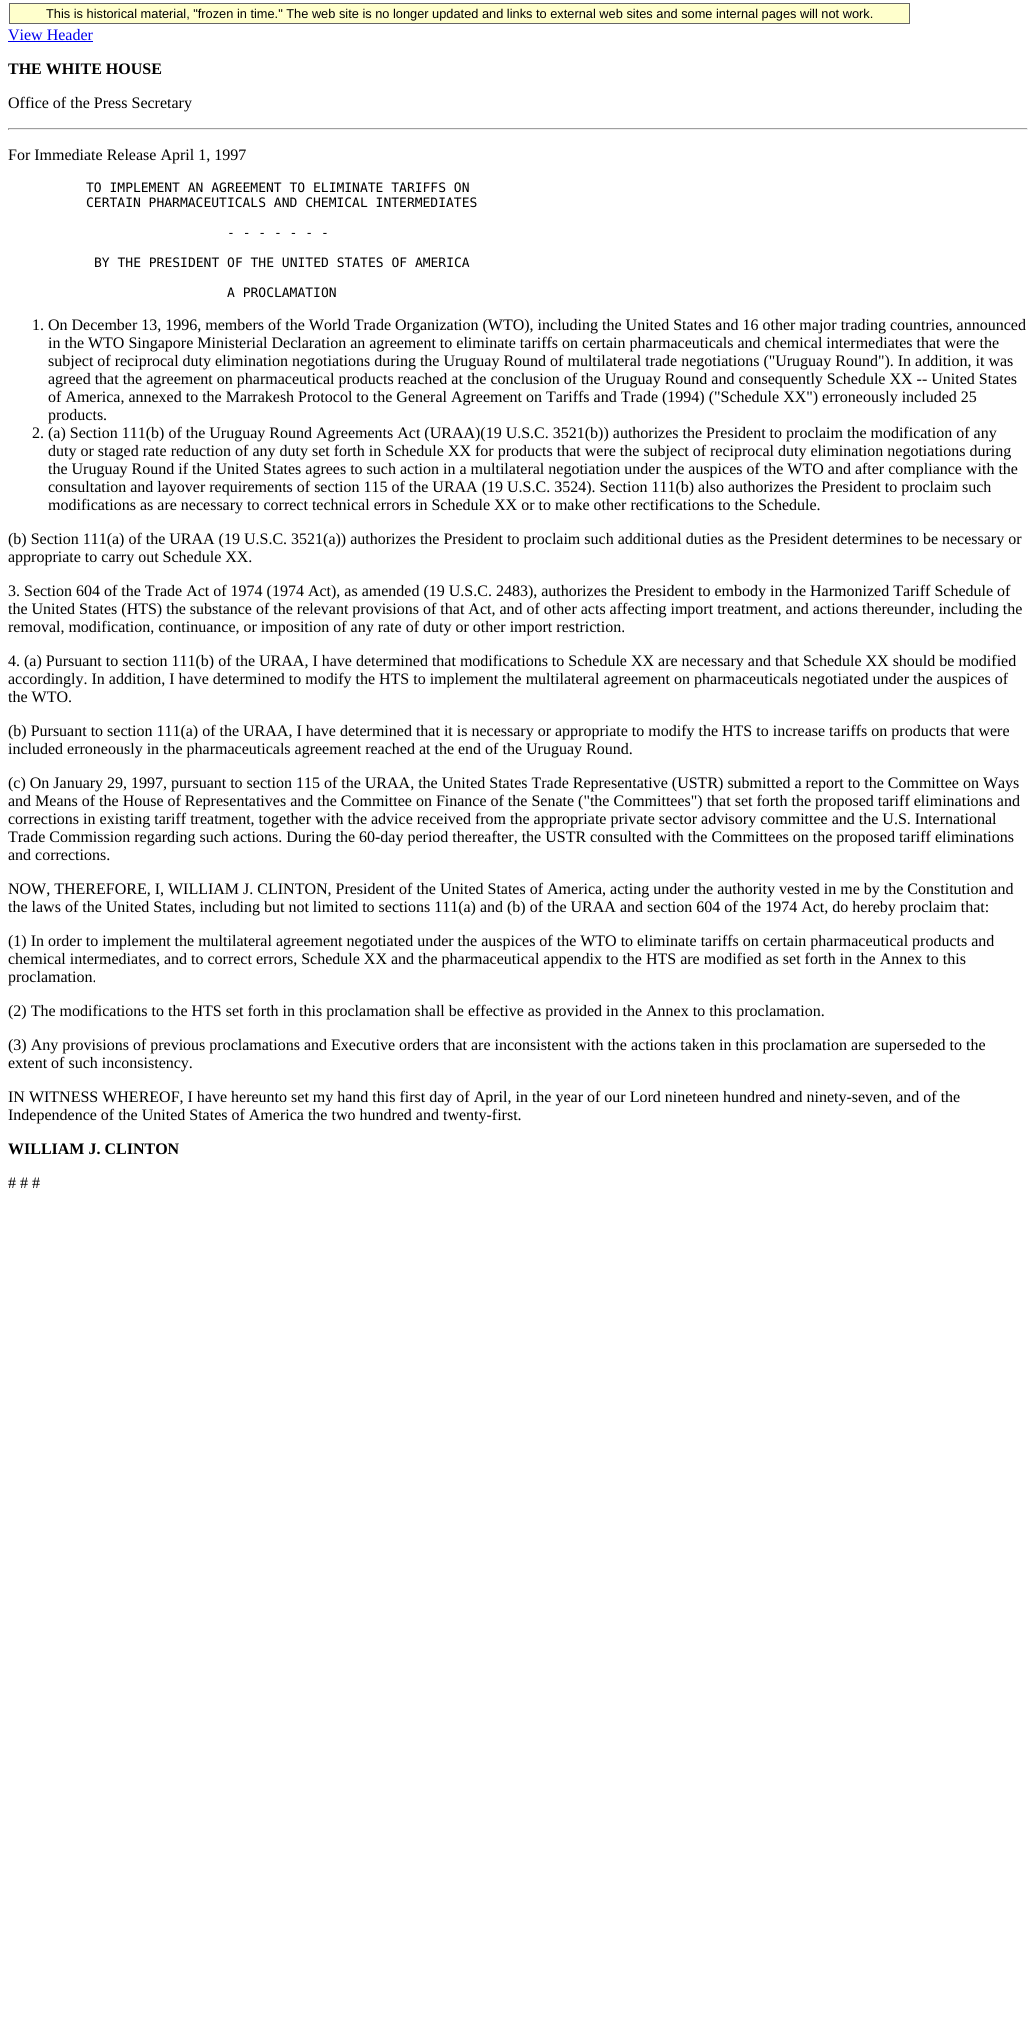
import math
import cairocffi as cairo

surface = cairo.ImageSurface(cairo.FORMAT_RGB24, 1036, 2020)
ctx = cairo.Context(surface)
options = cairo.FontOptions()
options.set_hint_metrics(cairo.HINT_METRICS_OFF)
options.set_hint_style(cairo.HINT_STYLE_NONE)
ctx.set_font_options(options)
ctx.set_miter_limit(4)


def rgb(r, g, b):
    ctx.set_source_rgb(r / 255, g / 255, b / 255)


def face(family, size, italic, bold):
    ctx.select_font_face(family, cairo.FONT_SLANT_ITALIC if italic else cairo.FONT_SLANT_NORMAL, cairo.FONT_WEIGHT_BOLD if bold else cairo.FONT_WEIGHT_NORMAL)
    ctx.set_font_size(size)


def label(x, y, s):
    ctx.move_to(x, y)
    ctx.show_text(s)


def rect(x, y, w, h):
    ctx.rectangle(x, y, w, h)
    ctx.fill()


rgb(255, 255, 255)
ctx.paint()
rgb(255, 255, 204)
ctx.rectangle(9.5, 3.5, 900, 20)
ctx.fill_preserve()
rgb(102, 102, 102)
ctx.set_line_width(1)
ctx.stroke()
face('Liberation Sans', 12.8, 0, 0)
rgb(0, 0, 0)
label(46, 18, 'This is historical material, "frozen in time." The web site is no longer updated and links to external web sites and some internal pages will not work.')
face('Liberation Serif', 16, 0, 0)
rgb(0, 0, 238)
label(8, 40, 'View Header')
rect(8, 41, 85, 1)
face('Liberation Serif', 16, 0, 1)
rgb(0, 0, 0)
label(8, 74, 'THE WHITE HOUSE')
face('Liberation Serif', 16, 0, 0)
label(8, 108, 'Office of the Press Secretary')
rgb(159, 159, 159)
rect(8, 128, 1020, 1)
rgb(238, 238, 238)
rect(1027, 128, 1, 2)
rect(8, 129, 1020, 1)
rgb(159, 159, 159)
rect(8, 128, 1, 2)
rgb(0, 0, 0)
label(8, 160, 'For Immediate Release April 1, 1997')
face('DejaVu Sans Mono', 13, 0, 0)
label(86, 192, 'TO IMPLEMENT AN AGREEMENT TO ELIMINATE TARIFFS ON')
label(86, 207, 'CERTAIN PHARMACEUTICALS AND CHEMICAL INTERMEDIATES')
label(227, 237, '- - - - - - -')
label(94, 267, 'BY THE PRESIDENT OF THE UNITED STATES OF AMERICA')
label(227, 297, 'A PROCLAMATION')
face('Liberation Serif', 16, 0, 0)
label(32, 330, '1. On December 13, 1996, members of the World Trade Organization (WTO), including the United States and 16 other major trading countries, announced')
label(48, 348, 'in the WTO Singapore Ministerial Declaration an agreement to eliminate tariffs on certain pharmaceuticals and chemical intermediates that were the')
label(48, 366, 'subject of reciprocal duty elimination negotiations during the Uruguay Round of multilateral trade negotiations ("Uruguay Round"). In addition, it was')
label(48, 384, 'agreed that the agreement on pharmaceutical products reached at the conclusion of the Uruguay Round and consequently Schedule XX -- United States')
label(48, 402, 'of America, annexed to the Marrakesh Protocol to the General Agreement on Tariffs and Trade (1994) ("Schedule XX") erroneously included 25')
label(48, 420, 'products.')
label(32, 438, '2. (a) Section 111(b) of the Uruguay Round Agreements Act (URAA)(19 U.S.C. 3521(b)) authorizes the President to proclaim the modification of any')
label(48, 456, 'duty or staged rate reduction of any duty set forth in Schedule XX for products that were the subject of reciprocal duty elimination negotiations during')
label(48, 474, 'the Uruguay Round if the United States agrees to such action in a multilateral negotiation under the auspices of the WTO and after compliance with the')
label(48, 492, 'consultation and layover requirements of section 115 of the URAA (19 U.S.C. 3524). Section 111(b) also authorizes the President to proclaim such')
label(48, 510, 'modifications as are necessary to correct technical errors in Schedule XX or to make other rectifications to the Schedule.')
label(8, 544, '(b) Section 111(a) of the URAA (19 U.S.C. 3521(a)) authorizes the President to proclaim such additional duties as the President determines to be necessary or')
label(8, 562, 'appropriate to carry out Schedule XX.')
label(8, 596, '3. Section 604 of the Trade Act of 1974 (1974 Act), as amended (19 U.S.C. 2483), authorizes the President to embody in the Harmonized Tariff Schedule of')
label(8, 614, 'the United States (HTS) the substance of the relevant provisions of that Act, and of other acts affecting import treatment, and actions thereunder, including the')
label(8, 632, 'removal, modification, continuance, or imposition of any rate of duty or other import restriction.')
label(8, 666, '4. (a) Pursuant to section 111(b) of the URAA, I have determined that modifications to Schedule XX are necessary and that Schedule XX should be modified')
label(8, 684, 'accordingly. In addition, I have determined to modify the HTS to implement the multilateral agreement on pharmaceuticals negotiated under the auspices of')
label(8, 702, 'the WTO.')
label(8, 736, '(b) Pursuant to section 111(a) of the URAA, I have determined that it is necessary or appropriate to modify the HTS to increase tariffs on products that were')
label(8, 754, 'included erroneously in the pharmaceuticals agreement reached at the end of the Uruguay Round.')
label(8, 788, '(c) On January 29, 1997, pursuant to section 115 of the URAA, the United States Trade Representative (USTR) submitted a report to the Committee on Ways')
label(8, 806, 'and Means of the House of Representatives and the Committee on Finance of the Senate ("the Committees") that set forth the proposed tariff eliminations and')
label(8, 824, 'corrections in existing tariff treatment, together with the advice received from the appropriate private sector advisory committee and the U.S. International')
label(8, 842, 'Trade Commission regarding such actions. During the 60-day period thereafter, the USTR consulted with the Committees on the proposed tariff eliminations')
label(8, 860, 'and corrections.')
label(8, 894, 'NOW, THEREFORE, I, WILLIAM J. CLINTON, President of the United States of America, acting under the authority vested in me by the Constitution and')
label(8, 912, 'the laws of the United States, including but not limited to sections 111(a) and (b) of the URAA and section 604 of the 1974 Act, do hereby proclaim that:')
label(8, 946, '(1) In order to implement the multilateral agreement negotiated under the auspices of the WTO to eliminate tariffs on certain pharmaceutical products and')
label(8, 964, 'chemical intermediates, and to correct errors, Schedule XX and the pharmaceutical appendix to the HTS are modified as set forth in the Annex to this')
label(8, 982, 'proclamation.')
label(8, 1016, '(2) The modifications to the HTS set forth in this proclamation shall be effective as provided in the Annex to this proclamation.')
label(8, 1050, '(3) Any provisions of previous proclamations and Executive orders that are inconsistent with the actions taken in this proclamation are superseded to the')
label(8, 1068, 'extent of such inconsistency.')
label(8, 1102, 'IN WITNESS WHEREOF, I have hereunto set my hand this first day of April, in the year of our Lord nineteen hundred and ninety-seven, and of the')
label(8, 1120, 'Independence of the United States of America the two hundred and twenty-first.')
face('Liberation Serif', 16, 0, 1)
label(8, 1154, 'WILLIAM J. CLINTON')
face('Liberation Serif', 16, 0, 0)
label(8, 1188, '# # #')
surface.write_to_png('render.png')
